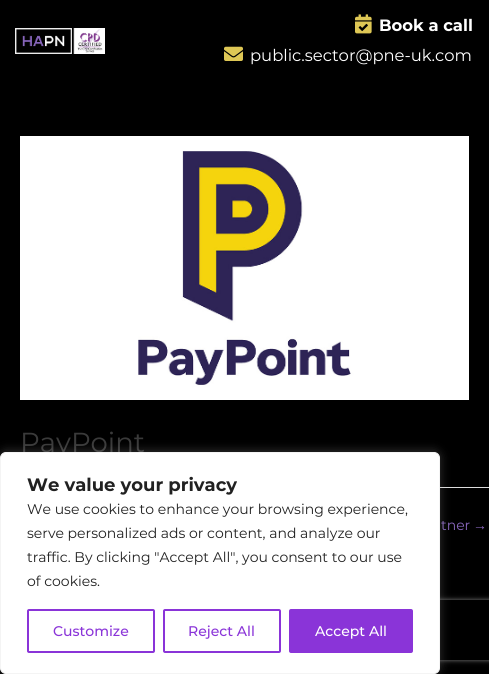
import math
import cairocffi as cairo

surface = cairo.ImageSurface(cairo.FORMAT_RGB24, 489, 674)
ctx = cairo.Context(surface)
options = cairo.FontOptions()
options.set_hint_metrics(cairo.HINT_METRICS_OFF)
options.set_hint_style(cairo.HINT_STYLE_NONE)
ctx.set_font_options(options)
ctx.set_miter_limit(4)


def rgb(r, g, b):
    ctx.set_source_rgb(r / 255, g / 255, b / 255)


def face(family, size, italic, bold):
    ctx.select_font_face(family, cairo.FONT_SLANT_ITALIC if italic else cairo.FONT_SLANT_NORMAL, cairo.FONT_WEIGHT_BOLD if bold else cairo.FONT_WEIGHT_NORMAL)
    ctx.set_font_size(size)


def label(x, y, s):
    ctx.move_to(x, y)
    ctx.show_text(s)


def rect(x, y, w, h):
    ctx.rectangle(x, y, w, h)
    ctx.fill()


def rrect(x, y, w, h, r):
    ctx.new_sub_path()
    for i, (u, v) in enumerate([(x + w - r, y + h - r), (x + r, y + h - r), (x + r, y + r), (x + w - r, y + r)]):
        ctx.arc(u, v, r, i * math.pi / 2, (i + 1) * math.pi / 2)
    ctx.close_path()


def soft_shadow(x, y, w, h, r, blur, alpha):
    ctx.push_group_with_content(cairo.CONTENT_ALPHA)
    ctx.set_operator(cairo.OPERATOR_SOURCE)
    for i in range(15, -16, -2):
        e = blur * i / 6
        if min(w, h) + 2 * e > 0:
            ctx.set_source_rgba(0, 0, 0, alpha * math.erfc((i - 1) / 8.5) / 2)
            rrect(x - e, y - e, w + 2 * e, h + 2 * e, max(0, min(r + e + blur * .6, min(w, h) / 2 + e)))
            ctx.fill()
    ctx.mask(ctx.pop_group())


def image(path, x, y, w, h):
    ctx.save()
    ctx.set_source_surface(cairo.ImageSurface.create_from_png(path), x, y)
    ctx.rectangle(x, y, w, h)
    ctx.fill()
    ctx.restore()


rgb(0, 0, 0)
ctx.paint()
image('image0.png', 15, 28, 90, 26)
image('image1.png', 355, 14, 17, 20)
face('Montserrat', 16.4, 0, 1)
rgb(255, 255, 255)
label(379, 31, 'Book a call')
image('image2.png', 224, 46, 19, 15)
face('Montserrat', 16.4, 0, 0)
label(250, 61, 'public.sector@pne-uk.com')
image('image3.png', 20, 136, 449, 264)
face('Montserrat', 27.5, 0, 0)
rgb(58, 58, 58)
label(20, 452, 'PayPoint')
rgb(221, 221, 221)
rect(440, 487, 49, 1)
face('Montserrat', 14, 0, 0)
rgb(136, 102, 188)
label(441, 530, 'tner')
face('Liberation Sans', 14, 0, 0)
label(473, 530, '→')
rgb(172, 171, 171)
soft_shadow(0, 451, 440, 222, 6, 5, 0.3)
ctx.save()
ctx.set_fill_rule(cairo.FILL_RULE_EVEN_ODD)
ctx.new_path()
ctx.move_to(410, 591)
ctx.line_to(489, 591)
ctx.line_to(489, 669)
ctx.line_to(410, 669)
ctx.close_path()
ctx.move_to(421, 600)
ctx.line_to(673, 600)
ctx.curve_to(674, 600, 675, 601, 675, 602)
ctx.line_to(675, 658)
ctx.curve_to(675, 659, 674, 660, 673, 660)
ctx.line_to(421, 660)
ctx.curve_to(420, 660, 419, 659, 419, 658)
ctx.line_to(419, 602)
ctx.curve_to(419, 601, 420, 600, 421, 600)
ctx.close_path()
ctx.clip()
rgb(128, 128, 128)
soft_shadow(419, 600, 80, 60, 2, 2.5, 1)
ctx.restore()
rgb(255, 255, 255)
rrect(0.5, 452.5, 439, 221, 5.5)
ctx.fill_preserve()
rgb(244, 244, 244)
ctx.set_line_width(1)
ctx.stroke()
face('Montserrat', 18, 0, 1)
rgb(33, 33, 33)
label(27, 491, 'We value your privacy')
face('Montserrat', 14, 0, 0)
label(27, 514, 'We use cookies to enhance your browsing experience,')
label(27, 538, 'serve personalized ads or content, and analyze our')
label(27, 562, 'traffic. By clicking "Accept All", you consent to our use')
label(27, 586, 'of cookies.')
rrect(28, 610, 126, 42, 1)
rgb(138, 52, 216)
ctx.set_line_width(2)
ctx.stroke()
face('Montserrat Medium', 14, 0, 0)
label(53, 636, 'Customize')
rrect(164, 610, 116, 42, 1)
ctx.stroke()
label(188, 636, 'Reject All')
rrect(290, 610, 122, 42, 1)
ctx.fill_preserve()
ctx.stroke()
rgb(255, 255, 255)
label(315, 636, 'Accept All')
surface.write_to_png('render.png')
